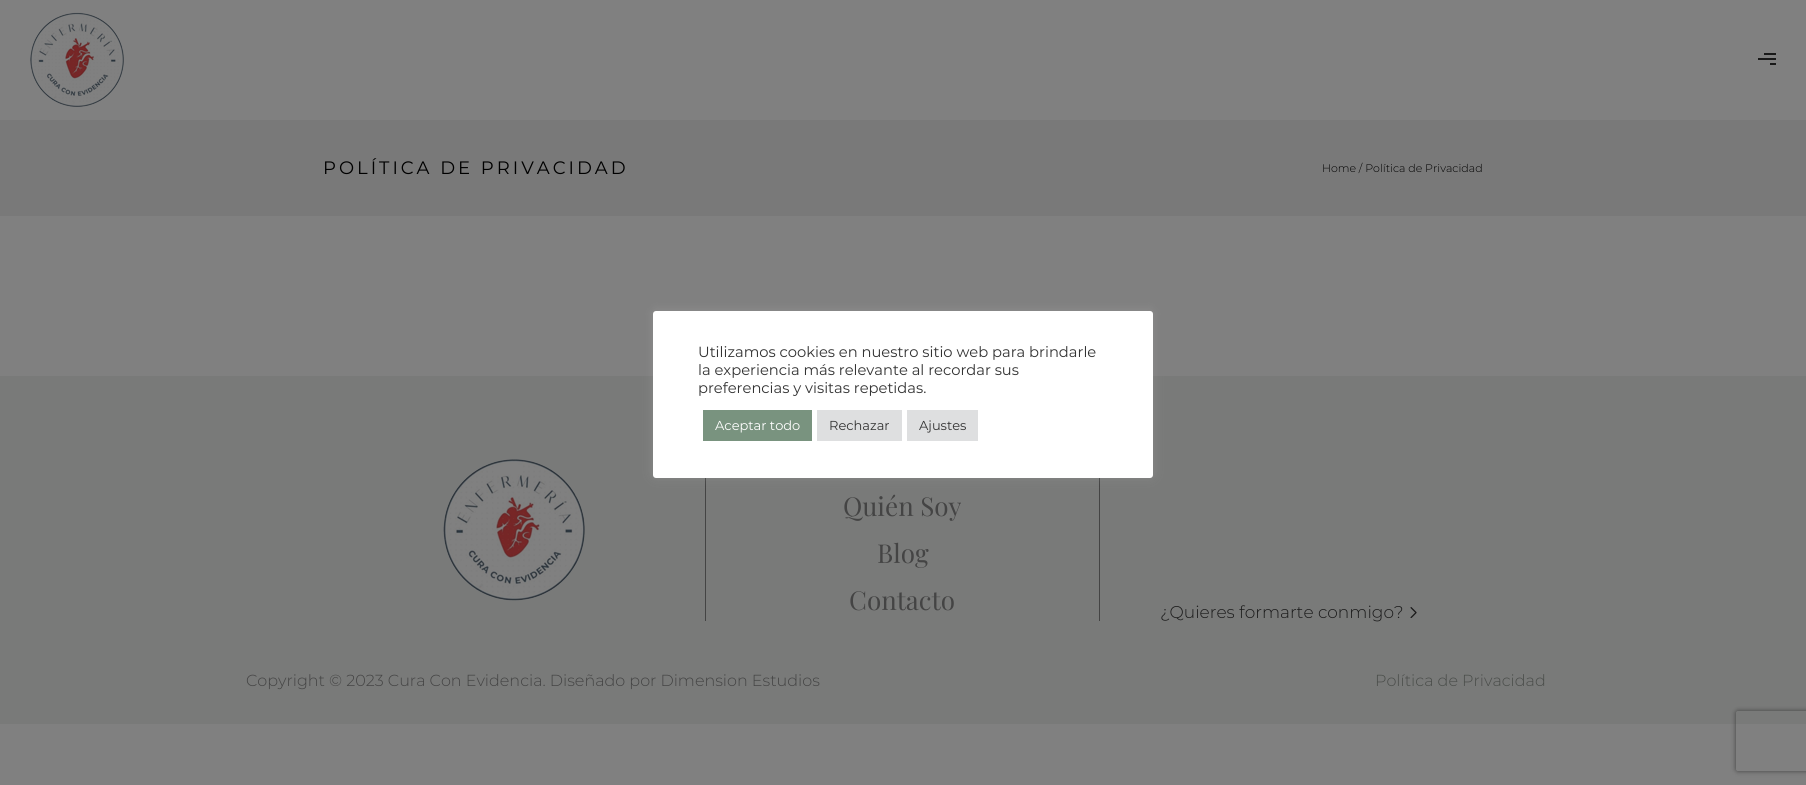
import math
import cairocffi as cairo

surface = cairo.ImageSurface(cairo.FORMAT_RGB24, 1806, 785)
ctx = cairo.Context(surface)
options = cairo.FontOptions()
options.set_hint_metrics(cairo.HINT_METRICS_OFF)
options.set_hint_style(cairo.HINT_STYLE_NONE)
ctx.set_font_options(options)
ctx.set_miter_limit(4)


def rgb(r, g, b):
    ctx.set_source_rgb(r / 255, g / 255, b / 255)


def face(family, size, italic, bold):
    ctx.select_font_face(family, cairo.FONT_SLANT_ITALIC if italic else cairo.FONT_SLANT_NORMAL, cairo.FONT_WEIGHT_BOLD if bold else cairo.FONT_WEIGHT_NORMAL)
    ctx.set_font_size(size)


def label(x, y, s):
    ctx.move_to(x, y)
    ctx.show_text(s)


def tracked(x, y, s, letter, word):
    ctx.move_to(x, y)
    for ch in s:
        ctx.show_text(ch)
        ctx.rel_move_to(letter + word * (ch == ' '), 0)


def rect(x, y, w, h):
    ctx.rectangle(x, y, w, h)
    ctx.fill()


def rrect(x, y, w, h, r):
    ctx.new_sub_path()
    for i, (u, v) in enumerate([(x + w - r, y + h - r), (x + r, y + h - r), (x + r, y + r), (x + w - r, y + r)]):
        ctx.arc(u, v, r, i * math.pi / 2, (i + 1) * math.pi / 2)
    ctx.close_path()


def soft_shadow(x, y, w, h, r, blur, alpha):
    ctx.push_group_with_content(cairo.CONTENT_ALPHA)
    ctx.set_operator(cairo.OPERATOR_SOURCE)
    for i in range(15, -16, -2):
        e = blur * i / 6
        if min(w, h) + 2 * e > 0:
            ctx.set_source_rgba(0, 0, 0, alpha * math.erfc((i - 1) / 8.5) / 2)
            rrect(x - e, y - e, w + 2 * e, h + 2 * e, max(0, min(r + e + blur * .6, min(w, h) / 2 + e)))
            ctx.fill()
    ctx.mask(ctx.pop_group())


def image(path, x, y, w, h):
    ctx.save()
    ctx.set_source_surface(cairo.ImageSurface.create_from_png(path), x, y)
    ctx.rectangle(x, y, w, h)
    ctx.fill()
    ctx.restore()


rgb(128, 128, 128)
ctx.paint()
image('image0.png', 30, 12, 94, 95)
rgb(25, 25, 25)
rect(1764, 53, 12, 2)
rect(1758, 58, 18, 2)
rect(1770, 63, 6, 2)
rgb(121, 121, 121)
rect(0, 120, 1806, 96)
face('Montserrat', 18, 0, 0)
rgb(0, 0, 0)
tracked(323, 174, 'POLÍTICA DE PRIVACIDAD', 3, 0)
face('Montserrat Light', 11, 0, 0)
label(1322, 172, 'Home / Política de Privacidad')
rgb(121, 122, 121)
rect(0, 376, 1806, 348)
rgb(68, 68, 68)
rect(705, 478, 1, 143)
image('image1.png', 443, 459, 142, 142)
rect(1099, 478, 1, 143)
face('Playfair Display', 26, 0, 0)
label(843, 516, 'Quién Soy')
label(877, 563, 'Blog')
label(849, 610, 'Contacto')
face('Montserrat Light', 17, 0, 0)
rgb(27, 27, 27)
label(1160, 618, '¿Quieres formarte conmigo?')
image('image2.png', 1410, 607, 7, 11)
face('Montserrat Light', 16, 0, 0)
rgb(68, 68, 68)
label(246, 686, 'Copyright © 2023 Cura Con Evidencia. Diseñado por Dimension Estudios')
rgb(74, 77, 74)
label(1375, 686, 'Política de Privacidad')
rgb(172, 171, 171)
soft_shadow(653, 310, 500, 167, 3, 5, 0.3)
rgb(255, 255, 255)
rrect(653, 311, 500, 167, 3)
ctx.fill()
face('Montserrat', 14.7, 0, 0)
rgb(51, 51, 51)
label(698, 357, 'Utilizamos cookies en nuestro sitio web para brindarle')
label(698, 375, 'la experiencia más relevante al recordar sus')
label(698, 393, 'preferencias y visitas repetidas.')
rgb(121, 147, 127)
rect(703, 410, 109, 31)
face('Montserrat', 13, 0, 0)
rgb(255, 255, 255)
label(715, 430, 'Aceptar todo')
rgb(222, 223, 224)
rect(817, 410, 85, 31)
rgb(51, 51, 51)
label(829, 430, 'Rechazar')
rgb(222, 223, 224)
rect(907, 410, 71, 31)
rgb(51, 51, 51)
label(919, 430, 'Ajustes')
ctx.save()
ctx.set_fill_rule(cairo.FILL_RULE_EVEN_ODD)
ctx.new_path()
ctx.move_to(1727, 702)
ctx.line_to(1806, 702)
ctx.line_to(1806, 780)
ctx.line_to(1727, 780)
ctx.close_path()
ctx.move_to(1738, 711)
ctx.line_to(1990, 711)
ctx.curve_to(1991, 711, 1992, 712, 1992, 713)
ctx.line_to(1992, 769)
ctx.curve_to(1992, 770, 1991, 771, 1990, 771)
ctx.line_to(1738, 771)
ctx.curve_to(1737, 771, 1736, 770, 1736, 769)
ctx.line_to(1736, 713)
ctx.curve_to(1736, 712, 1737, 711, 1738, 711)
ctx.close_path()
ctx.clip()
rgb(64, 64, 64)
soft_shadow(1736, 711, 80, 60, 2, 2.5, 1)
ctx.restore()
surface.write_to_png('render.png')
